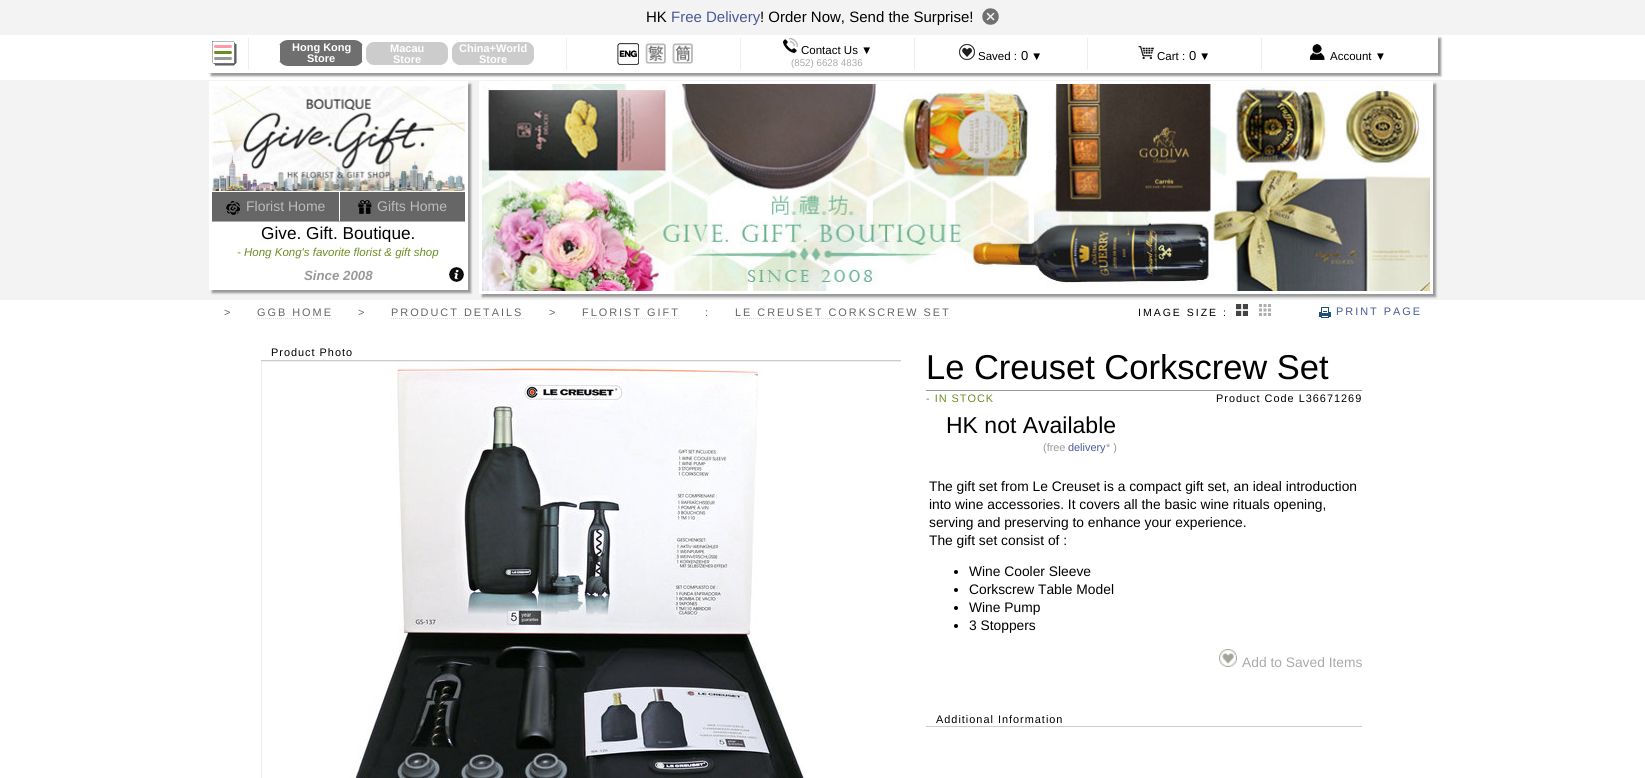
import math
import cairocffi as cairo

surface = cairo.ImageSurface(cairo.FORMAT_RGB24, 1645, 778)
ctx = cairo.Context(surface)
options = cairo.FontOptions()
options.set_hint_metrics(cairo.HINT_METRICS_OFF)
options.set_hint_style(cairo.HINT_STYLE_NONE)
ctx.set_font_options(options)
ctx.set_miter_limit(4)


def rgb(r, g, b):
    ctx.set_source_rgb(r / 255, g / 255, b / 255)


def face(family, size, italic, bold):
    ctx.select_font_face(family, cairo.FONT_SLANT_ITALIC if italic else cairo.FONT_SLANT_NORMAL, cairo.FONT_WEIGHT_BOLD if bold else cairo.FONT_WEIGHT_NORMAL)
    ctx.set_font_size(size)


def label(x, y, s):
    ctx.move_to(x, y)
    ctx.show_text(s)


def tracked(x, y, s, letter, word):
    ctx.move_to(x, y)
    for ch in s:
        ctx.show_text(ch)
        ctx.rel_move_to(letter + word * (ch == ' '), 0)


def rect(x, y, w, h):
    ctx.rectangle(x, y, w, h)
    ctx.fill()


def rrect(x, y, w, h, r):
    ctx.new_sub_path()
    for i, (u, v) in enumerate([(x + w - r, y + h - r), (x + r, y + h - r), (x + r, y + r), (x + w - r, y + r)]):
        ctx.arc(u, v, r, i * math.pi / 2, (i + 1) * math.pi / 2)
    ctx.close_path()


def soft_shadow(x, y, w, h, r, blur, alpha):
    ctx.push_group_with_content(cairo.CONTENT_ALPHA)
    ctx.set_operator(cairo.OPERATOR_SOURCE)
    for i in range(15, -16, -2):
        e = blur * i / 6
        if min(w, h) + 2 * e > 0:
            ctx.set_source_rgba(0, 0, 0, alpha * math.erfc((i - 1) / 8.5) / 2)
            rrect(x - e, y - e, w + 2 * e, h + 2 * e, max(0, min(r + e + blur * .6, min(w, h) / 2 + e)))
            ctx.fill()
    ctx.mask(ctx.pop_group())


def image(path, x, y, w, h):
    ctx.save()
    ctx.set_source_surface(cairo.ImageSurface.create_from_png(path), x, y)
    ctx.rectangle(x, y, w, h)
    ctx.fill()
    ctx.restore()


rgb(255, 255, 255)
ctx.paint()
rgb(243, 243, 243)
rect(0, 0, 1645, 35)
rgb(238, 238, 238)
rect(208, 73, 1230, 1)
ctx.save()
ctx.set_fill_rule(cairo.FILL_RULE_EVEN_ODD)
ctx.new_path()
ctx.move_to(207, 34)
ctx.line_to(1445, 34)
ctx.line_to(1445, 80)
ctx.line_to(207, 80)
ctx.close_path()
ctx.move_to(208, 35)
ctx.line_to(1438, 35)
ctx.line_to(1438, 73)
ctx.line_to(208, 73)
ctx.close_path()
ctx.clip()
rgb(153, 153, 153)
soft_shadow(211, 38, 1230, 38, 0, 1, 1)
ctx.restore()
image('image0.png', 212, 41, 25, 25)
rgb(255, 255, 255)
rect(216, 46, 15, 13)
rgb(255, 153, 170)
rrect(214, 45, 18, 3, 1.5)
ctx.fill()
rgb(107, 142, 35)
rrect(214, 51, 18, 3, 1.5)
ctx.fill()
rgb(153, 153, 153)
rrect(214, 57, 18, 3, 1.5)
ctx.fill()
face('Liberation Sans', 15, 0, 0)
rgb(0, 0, 0)
label(646, 22, 'HK')
rgb(73, 89, 149)
label(671, 22, 'Free Delivery')
rgb(0, 0, 0)
label(760, 22, '! Order Now, Send the Surprise!')
image('image1.png', 982, 8, 17, 17)
rgb(238, 238, 238)
rect(248, 36, 1, 36)
rect(566, 36, 1, 36)
rect(740, 36, 1, 36)
rect(914, 36, 1, 36)
rect(1087, 36, 1, 36)
rect(1261, 36, 1, 36)
rgb(255, 255, 255)
rect(248, 36, 1014, 2)
rect(248, 70, 1014, 2)
rgb(111, 111, 111)
rrect(278, 40, 86, 26, 10)
ctx.fill()
rgb(255, 255, 255)
rect(362, 45, 2, 16)
rect(278, 45, 2, 16)
face('Liberation Sans', 11, 0, 1)
label(292, 51, 'Hong Kong')
label(307, 62, 'Store')
rgb(204, 204, 204)
rrect(365, 41, 84, 25, 9)
ctx.fill_preserve()
rgb(255, 255, 255)
ctx.stroke()
label(390, 52, 'Macau')
label(393, 63, 'Store')
rgb(204, 204, 204)
rrect(451, 41, 84, 25, 9)
ctx.fill_preserve()
rgb(255, 255, 255)
ctx.stroke()
label(459, 52, 'China+World')
label(479, 63, 'Store')
image('image2.png', 617, 43, 22, 22)
image('image3.png', 645, 43, 21, 21)
image('image4.png', 672, 43, 21, 21)
image('image5.png', 783, 38, 15, 15)
face('Liberation Sans', 11.5, 0, 0)
rgb(0, 0, 0)
label(801, 54, 'Contact Us ▼')
face('Liberation Sans', 9.75, 0, 0)
rgb(170, 170, 170)
label(791, 66, '(852) 6628 4836')
image('image6.png', 959, 44, 16, 16)
face('Liberation Sans', 11.5, 0, 0)
rgb(0, 0, 0)
label(978, 60, 'Saved :')
face('Liberation Sans', 13, 0, 0)
label(1021, 60, '0')
face('Liberation Sans', 11.5, 0, 0)
label(1031, 60, '▼')
image('image7.png', 1138, 46, 16, 13)
label(1157, 60, 'Cart :')
face('Liberation Sans', 13, 0, 0)
label(1189, 60, '0')
face('Liberation Sans', 11.5, 0, 0)
label(1199, 60, '▼')
image('image8.png', 1310, 44, 15, 16)
label(1330, 60, 'Account ▼')
rgb(243, 243, 243)
rect(0, 80, 1645, 220)
rgb(153, 153, 153)
soft_shadow(212, 84, 259, 209, 0, 1, 1)
rgb(255, 255, 255)
rect(209, 81, 259, 209)
image('image9.png', 212, 86, 253, 105)
rgb(102, 102, 102)
rect(212, 192, 253, 29)
rgb(255, 255, 255)
rect(339, 192, 1, 29)
image('image10.png', 226, 201, 14, 14)
face('Liberation Sans', 14, 0, 0)
rgb(187, 187, 187)
label(246, 211, 'Florist Home')
image('image11.png', 358, 200, 14, 14)
label(377, 211, 'Gifts Home')
rgb(170, 170, 170)
rect(212, 221, 253, 1)
ctx.save()
ctx.rectangle(212, 222, 253, 20)
ctx.clip()
face('Liberation Sans', 17.25, 0, 0)
rgb(0, 0, 0)
label(261, 239, 'Give. Gift. Boutique.')
ctx.restore()
face('Liberation Sans', 11.5, 1, 0)
rgb(107, 142, 35)
label(237, 256, '- Hong Kong\'s favorite florist & gift shop')
face('Liberation Sans', 13.25, 1, 1)
rgb(153, 153, 153)
label(304, 280, 'Since 2008')
image('image12.png', 449, 267, 15, 15)
rgb(153, 153, 153)
soft_shadow(482, 84, 954, 213, 0, 1, 1)
ctx.rectangle(480.5, 82.5, 951, 210)
rgb(255, 255, 255)
ctx.set_line_width(3)
ctx.stroke()
image('image13.png', 482, 84, 948, 207)
face('Liberation Sans', 10.9, 0, 0)
rgb(102, 102, 102)
tracked(224, 316, '>', 2, 0)
tracked(257, 316, 'GGB HOME', 2, 0)
ctx.new_path()
ctx.move_to(257, 318.5)
ctx.line_to(333, 318.5)
rgb(221, 221, 221)
ctx.set_line_width(1)
ctx.set_dash([1, 1])
ctx.stroke()
rgb(102, 102, 102)
tracked(358, 316, '>', 2, 0)
tracked(391, 316, 'PRODUCT DETAILS', 2, 0)
ctx.new_path()
ctx.move_to(391, 318.5)
ctx.line_to(524, 318.5)
rgb(221, 221, 221)
ctx.stroke()
rgb(102, 102, 102)
tracked(549, 316, '>', 2, 0)
tracked(582, 316, 'FLORIST GIFT', 2, 0)
ctx.new_path()
ctx.move_to(582, 318.5)
ctx.line_to(680, 318.5)
rgb(221, 221, 221)
ctx.stroke()
rgb(102, 102, 102)
tracked(705, 316, ':', 2, 0)
tracked(735, 316, 'LE CREUSET CORKSCREW SET', 2, 0)
ctx.new_path()
ctx.move_to(735, 318.5)
ctx.line_to(951, 318.5)
rgb(221, 221, 221)
ctx.stroke()
face('Liberation Sans', 10.5, 0, 0)
rgb(0, 0, 0)
tracked(1138, 316, 'IMAGE SIZE :', 2, 0)
image('image14.png', 1236, 304, 12, 12)
image('image15.png', 1259, 304, 12, 12)
image('image16.png', 1319, 307, 12, 11)
face('Liberation Sans', 10.9, 0, 0)
rgb(73, 89, 149)
tracked(1336, 315, 'PRINT PAGE', 2, 0)
rgb(204, 204, 204)
rect(261, 360, 640, 1)
rgb(0, 0, 0)
tracked(271, 356, 'Product Photo', 1, 0)
ctx.save()
ctx.rectangle(261, 361, 640, 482)
ctx.clip()
ctx.rectangle(261.5, 361.5, 641, 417)
rgb(238, 238, 238)
ctx.set_dash([])
ctx.stroke()
ctx.restore()
image('image17.png', 350, 362, 456, 416)
rgb(153, 153, 153)
rect(926, 390, 436, 1)
face('Liberation Sans', 34.5, 0, 0)
rgb(0, 0, 0)
label(926, 379, 'Le Creuset Corkscrew Set')
face('Liberation Sans', 10.9, 0, 0)
rgb(107, 142, 35)
tracked(926, 402, '- IN STOCK', 1, 0)
rgb(0, 0, 0)
tracked(1216, 402, 'Product Code L36671269', 1, 0)
face('Liberation Sans', 23, 0, 0)
label(946, 433, 'HK not Available')
face('Liberation Sans', 10.9, 0, 0)
rgb(153, 153, 153)
label(1043, 451, '(free')
rgb(73, 89, 149)
label(1068, 451, 'delivery')
rgb(153, 153, 153)
label(1106, 451, '* )')
face('Liberation Sans', 13.8, 0, 0)
rgb(0, 0, 0)
label(929, 491, 'The gift set from Le Creuset is a compact gift set, an ideal introduction')
label(929, 509, 'into wine accessories. It covers all the basic wine rituals opening,')
label(929, 527, 'serving and preserving to enhance your experience.')
label(929, 545, 'The gift set consist of :')
ctx.new_path()
ctx.arc(956, 572, 2, 0, 2 * math.pi)
ctx.fill()
label(969, 576, 'Wine Cooler Sleeve')
ctx.new_path()
ctx.arc(956, 590, 2, 0, 2 * math.pi)
ctx.fill()
label(969, 594, 'Corkscrew Table Model')
ctx.new_path()
ctx.arc(956, 608, 2, 0, 2 * math.pi)
ctx.fill()
label(969, 612, 'Wine Pump')
ctx.new_path()
ctx.arc(956, 626, 2, 0, 2 * math.pi)
ctx.fill()
label(969, 630, '3 Stoppers')
image('image18.png', 1219, 649, 18, 18)
rgb(170, 170, 170)
label(1242, 667, 'Add to Saved Items')
rgb(204, 204, 204)
rect(926, 726, 436, 1)
face('Liberation Sans', 10.9, 0, 0)
rgb(0, 0, 0)
tracked(936, 723, 'Additional Information', 1, 0)
surface.write_to_png('render.png')
